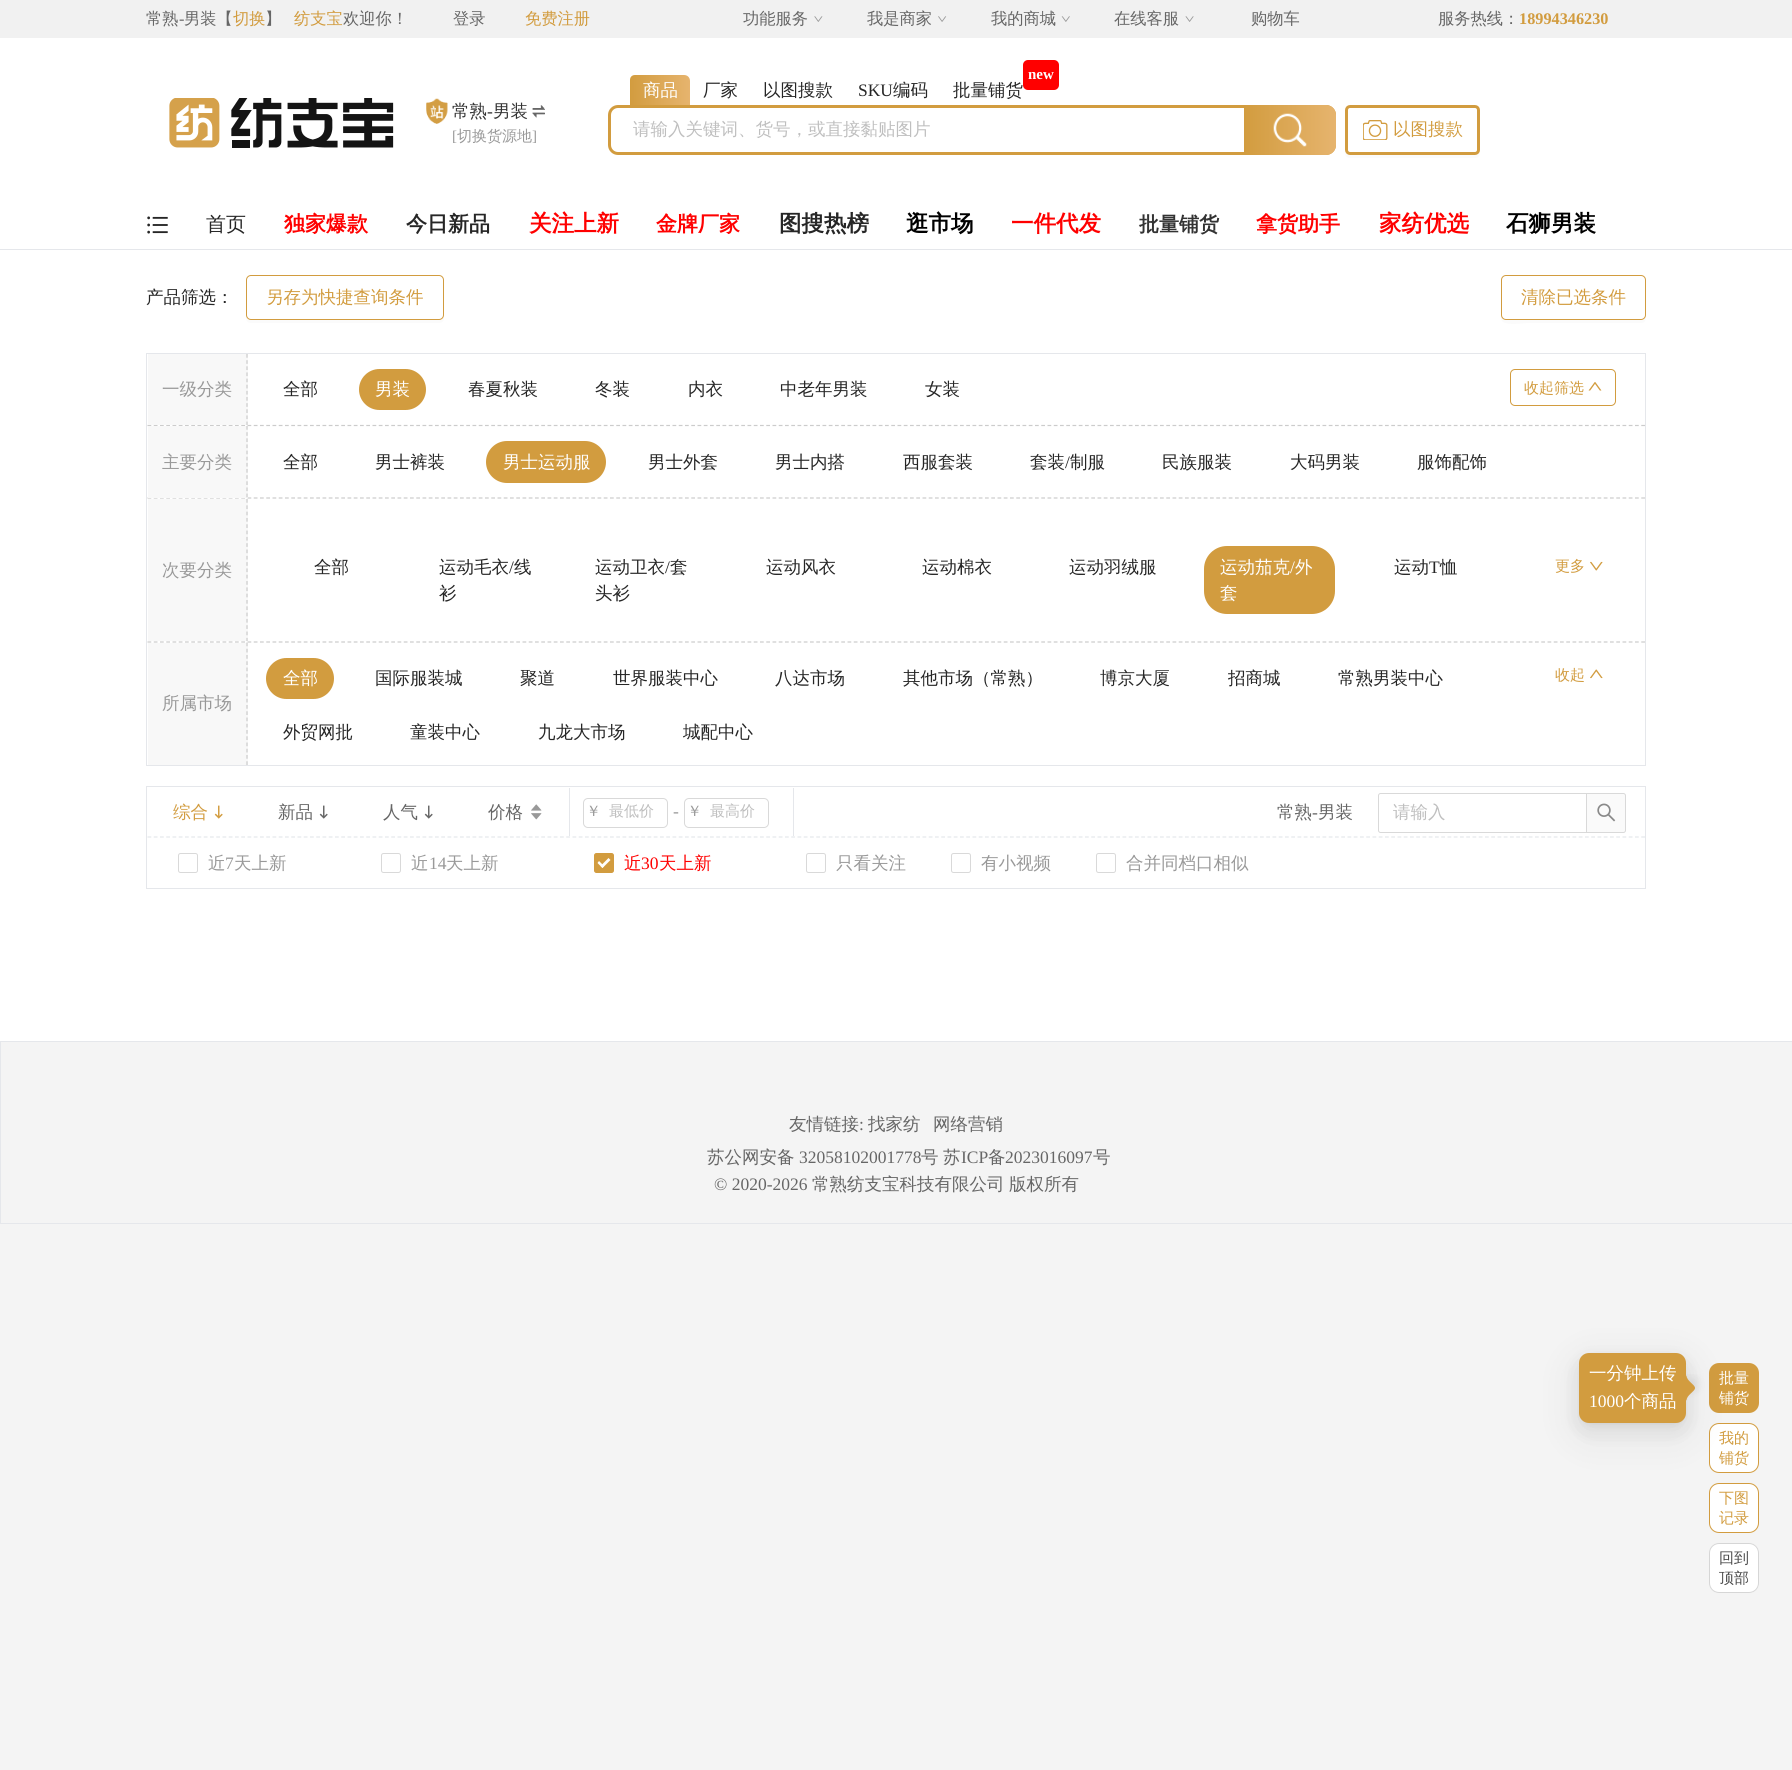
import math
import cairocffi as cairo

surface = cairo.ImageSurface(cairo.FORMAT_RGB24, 1792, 1770)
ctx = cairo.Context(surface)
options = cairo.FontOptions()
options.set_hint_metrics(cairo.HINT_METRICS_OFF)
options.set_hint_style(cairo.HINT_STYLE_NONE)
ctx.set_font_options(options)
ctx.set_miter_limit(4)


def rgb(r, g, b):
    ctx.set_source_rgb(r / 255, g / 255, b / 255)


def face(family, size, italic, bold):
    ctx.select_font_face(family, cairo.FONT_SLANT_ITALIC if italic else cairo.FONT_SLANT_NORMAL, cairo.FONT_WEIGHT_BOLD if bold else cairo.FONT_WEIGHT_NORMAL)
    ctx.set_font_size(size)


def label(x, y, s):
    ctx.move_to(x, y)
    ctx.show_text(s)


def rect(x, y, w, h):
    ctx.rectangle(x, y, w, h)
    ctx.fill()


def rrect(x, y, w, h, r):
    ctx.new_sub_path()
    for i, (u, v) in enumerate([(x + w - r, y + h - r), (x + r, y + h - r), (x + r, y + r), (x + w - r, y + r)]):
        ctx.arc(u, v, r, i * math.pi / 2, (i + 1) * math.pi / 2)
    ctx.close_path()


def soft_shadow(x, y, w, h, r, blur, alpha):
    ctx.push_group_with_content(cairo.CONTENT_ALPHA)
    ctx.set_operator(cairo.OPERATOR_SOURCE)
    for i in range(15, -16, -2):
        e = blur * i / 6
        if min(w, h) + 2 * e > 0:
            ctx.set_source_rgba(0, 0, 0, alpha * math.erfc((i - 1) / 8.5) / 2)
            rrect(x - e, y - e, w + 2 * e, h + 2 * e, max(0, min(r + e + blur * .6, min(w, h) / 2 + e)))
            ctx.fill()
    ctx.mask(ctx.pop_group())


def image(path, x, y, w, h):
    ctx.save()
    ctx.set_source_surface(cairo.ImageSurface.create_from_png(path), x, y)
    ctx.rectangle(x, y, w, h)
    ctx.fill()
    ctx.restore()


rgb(244, 244, 244)
ctx.paint()
rgb(241, 241, 241)
rect(0, 0, 1792, 38)
face('WenQuanYi Zen Hei Medium', 16.25, 0, 0)
rgb(102, 102, 102)
label(146, 24, '常熟')
face('Liberation Serif', 16.25, 0, 0)
label(179, 24, '-')
face('WenQuanYi Zen Hei Medium', 16.25, 0, 0)
label(184, 24, '男装【')
rgb(210, 156, 63)
label(233, 24, '切换')
rgb(102, 102, 102)
label(265, 24, '】')
rgb(210, 156, 63)
label(294, 24, '纺支宝')
rgb(102, 102, 102)
label(343, 24, '欢迎你！')
label(453, 24, '登录')
rgb(210, 156, 63)
label(525, 24, '免费注册')
rgb(102, 102, 102)
label(743, 24, '功能服务')
image('image0.png', 814, 16, 9, 6)
label(867, 24, '我是商家')
image('image1.png', 938, 16, 9, 6)
label(991, 24, '我的商城')
image('image2.png', 1061, 16, 9, 6)
label(1114, 24, '在线客服')
image('image3.png', 1185, 16, 9, 6)
label(1251, 24, '购物车')
label(1438, 24, '服务热线：')
face('Liberation Serif', 16.25, 0, 1)
rgb(210, 156, 63)
label(1519, 24, '18994346230')
rgb(255, 255, 255)
rect(0, 38, 1792, 211)
image('image4.png', 169, 98, 225, 50)
image('image5.png', 426, 98, 22, 26)
face('WenQuanYi Zen Hei Medium', 17.5, 0, 0)
rgb(51, 51, 51)
label(452, 117, '常熟')
face('Liberation Serif', 17.5, 0, 0)
label(487, 117, '-')
face('WenQuanYi Zen Hei Medium', 17.5, 0, 0)
label(493, 117, '男装')
image('image6.png', 532, 105, 13, 13)
face('Liberation Serif', 15, 0, 0)
rgb(153, 153, 153)
label(452, 141, '[')
face('WenQuanYi Zen Hei Medium', 15, 0, 0)
label(457, 141, '切换货源地')
face('Liberation Serif', 15, 0, 0)
label(532, 141, ']')
gradient = cairo.LinearGradient(690, 90, 630, 90)
gradient.add_color_stop_rgba(0, 0.902, 0.706, 0.431, 1)
gradient.add_color_stop_rgba(1, 0.824, 0.612, 0.247, 1)
ctx.set_source(gradient)
ctx.new_path()
ctx.move_to(635, 75)
ctx.line_to(684, 75)
ctx.curve_to(687.5, 75, 690, 77.5, 690, 81)
ctx.line_to(690, 105)
ctx.line_to(630, 105)
ctx.line_to(630, 80)
ctx.curve_to(630, 77, 632, 75, 635, 75)
ctx.close_path()
ctx.fill()
face('WenQuanYi Zen Hei Medium', 17.5, 0, 0)
rgb(255, 255, 255)
label(643, 96, '商品')
rgb(38, 38, 38)
label(703, 96, '厂家')
label(763, 96, '以图搜款')
face('Liberation Serif', 17.5, 0, 0)
label(858, 96, 'SKU')
face('WenQuanYi Zen Hei Medium', 17.5, 0, 0)
label(893, 96, '编码')
rgb(255, 0, 0)
rrect(1023, 60, 36, 30, 5)
ctx.fill()
face('Liberation Serif', 15, 0, 1)
rgb(255, 255, 255)
label(1028, 79, 'new')
face('WenQuanYi Zen Hei Medium', 17.5, 0, 0)
rgb(38, 38, 38)
label(953, 96, '批量铺货')
rrect(609.5, 106.5, 725, 47, 8.5)
rgb(210, 156, 63)
ctx.set_line_width(3)
ctx.stroke()
rgb(191, 191, 191)
label(633, 135, '请输入关键词、货号，或直接黏贴图片')
gradient = cairo.LinearGradient(1336, 130, 1244, 130)
gradient.add_color_stop_rgba(0, 0.902, 0.706, 0.431, 1)
gradient.add_color_stop_rgba(1, 0.824, 0.612, 0.247, 1)
ctx.set_source(gradient)
ctx.new_path()
ctx.move_to(1244, 105)
ctx.line_to(1326, 105)
ctx.curve_to(1331.5, 105, 1336, 109.5, 1336, 115)
ctx.line_to(1336, 145)
ctx.curve_to(1336, 150.5, 1331.5, 155, 1326, 155)
ctx.line_to(1244, 155)
ctx.close_path()
ctx.fill()
image('image7.png', 1273, 113, 34, 34)
rgb(251, 251, 251)
ctx.new_path()
ctx.move_to(1345, 150)
ctx.line_to(1345, 153)
ctx.curve_to(1345, 156, 1347, 158, 1350, 158)
ctx.line_to(1475, 158)
ctx.curve_to(1478, 158, 1480, 156, 1480, 153)
ctx.line_to(1480, 150)
ctx.curve_to(1480, 153, 1478, 155, 1475, 155)
ctx.line_to(1350, 155)
ctx.curve_to(1347, 155, 1345, 153, 1345, 150)
ctx.close_path()
ctx.fill()
rrect(1346.5, 106.5, 132, 47, 3.5)
rgb(210, 156, 63)
ctx.stroke()
image('image8.png', 1363, 120, 25, 20)
label(1393, 135, '以图搜款')
rgb(229, 231, 235)
rect(0, 249, 1792, 1)
image('image9.png', 147, 216, 21, 18)
face('WenQuanYi Zen Hei Medium', 20, 0, 0)
rgb(38, 38, 38)
label(206, 231, '首页')
face('WenQuanYi Zen Hei', 21, 0, 1)
rgb(255, 0, 0)
label(284, 231, '独家爆款')
rgb(38, 38, 38)
label(406, 231, '今日新品')
face('WenQuanYi Zen Hei', 22.5, 0, 1)
rgb(255, 0, 0)
label(529, 231, '关注上新')
face('WenQuanYi Zen Hei', 21, 0, 1)
label(656, 231, '金牌厂家')
face('WenQuanYi Zen Hei', 22.5, 0, 1)
rgb(38, 38, 38)
label(779, 231, '图搜热榜')
rgb(0, 0, 0)
label(906, 231, '逛市场')
rgb(255, 0, 0)
label(1011, 231, '一件代发')
face('WenQuanYi Zen Hei', 20, 0, 1)
rgb(51, 51, 51)
label(1139, 231, '批量铺货')
face('WenQuanYi Zen Hei', 21, 0, 1)
rgb(255, 0, 0)
label(1256, 231, '拿货助手')
face('WenQuanYi Zen Hei', 22.5, 0, 1)
label(1379, 231, '家纺优选')
rgb(0, 0, 0)
label(1506, 231, '石狮男装')
rgb(255, 255, 255)
rect(0, 250, 1792, 791)
face('WenQuanYi Zen Hei Medium', 17.5, 0, 0)
rgb(38, 38, 38)
label(146, 303, '产品筛选：')
rgb(251, 251, 251)
ctx.new_path()
ctx.move_to(246, 281)
ctx.line_to(246, 318)
ctx.curve_to(246, 321, 248, 323, 251, 323)
ctx.line_to(439, 323)
ctx.curve_to(442, 323, 444, 321, 444, 318)
ctx.line_to(444, 281)
ctx.line_to(444, 315)
ctx.curve_to(444, 318, 442, 320, 439, 320)
ctx.line_to(251, 320)
ctx.curve_to(248, 320, 246, 318, 246, 315)
ctx.close_path()
ctx.fill()
rrect(246.5, 275.5, 197, 44, 4.5)
rgb(210, 156, 63)
ctx.set_line_width(1)
ctx.stroke()
label(266, 303, '另存为快捷查询条件')
rgb(251, 251, 251)
ctx.new_path()
ctx.move_to(1501, 281)
ctx.line_to(1501, 319)
ctx.curve_to(1503, 327, 1522, 323, 1528, 323)
ctx.line_to(1641, 323)
ctx.curve_to(1645, 323, 1646, 320, 1646, 317)
ctx.curve_to(1645, 319, 1643, 320, 1641, 320)
ctx.line_to(1506, 320)
ctx.curve_to(1503, 320, 1501, 318, 1501, 315)
ctx.close_path()
ctx.fill()
rrect(1501.5, 275.5, 144, 44, 4.5)
rgb(210, 156, 63)
ctx.stroke()
label(1521, 303, '清除已选条件')
ctx.rectangle(146.5, 353.5, 1499, 412)
rgb(229, 231, 235)
ctx.stroke()
ctx.new_path()
ctx.move_to(147.5, 425.5)
ctx.line_to(1645, 425.5)
rgb(204, 204, 204)
ctx.set_line_width(1.2)
ctx.set_dash([3.75, 2.5])
ctx.stroke()
rgb(248, 248, 248)
rect(148, 354, 100, 71)
ctx.new_path()
ctx.move_to(247, 354)
ctx.line_to(247, 425)
rgb(204, 204, 204)
ctx.set_dash([3.75, 2.39])
ctx.stroke()
rgb(153, 153, 153)
label(162, 395, '一级分类')
rgb(38, 38, 38)
label(283, 395, '全部')
rgb(210, 156, 63)
rrect(359, 369, 67, 41, 20.5)
ctx.fill()
rgb(255, 255, 255)
label(375, 395, '男装')
rgb(38, 38, 38)
label(468, 395, '春夏秋装')
label(595, 395, '冬装')
label(688, 395, '内衣')
label(780, 395, '中老年男装')
label(925, 395, '女装')
rrect(1510.5, 369.5, 105, 36, 4.5)
rgb(210, 156, 63)
ctx.set_line_width(1)
ctx.set_dash([])
ctx.stroke()
face('WenQuanYi Zen Hei Medium', 15, 0, 0)
label(1524, 393, '收起筛选')
image('image10.png', 1588, 382, 14, 9)
ctx.new_path()
ctx.move_to(147.5, 498)
ctx.line_to(1645, 498)
rgb(204, 204, 204)
ctx.set_line_width(1.2)
ctx.set_dash([3.75, 2.5])
ctx.stroke()
rgb(248, 248, 248)
rect(148, 426, 100, 72)
ctx.new_path()
ctx.move_to(247, 426)
ctx.line_to(247, 497.5)
rgb(204, 204, 204)
ctx.set_dash([3.75, 2.39])
ctx.stroke()
face('WenQuanYi Zen Hei Medium', 17.5, 0, 0)
rgb(153, 153, 153)
label(162, 468, '主要分类')
rgb(38, 38, 38)
label(283, 468, '全部')
label(375, 468, '男士裤装')
rgb(210, 156, 63)
rrect(486, 441, 120, 42, 21)
ctx.fill()
rgb(255, 255, 255)
label(503, 468, '男士运动服')
rgb(38, 38, 38)
label(648, 468, '男士外套')
label(775, 468, '男士内搭')
label(903, 468, '西服套装')
label(1030, 468, '套装')
face('Liberation Serif', 17.5, 0, 0)
label(1065, 468, '/')
face('WenQuanYi Zen Hei Medium', 17.5, 0, 0)
label(1070, 468, '制服')
label(1162, 468, '民族服装')
label(1290, 468, '大码男装')
label(1417, 468, '服饰配饰')
ctx.new_path()
ctx.move_to(147.5, 642)
ctx.line_to(1645, 642)
rgb(204, 204, 204)
ctx.set_dash([3.75, 2.5])
ctx.stroke()
rgb(248, 248, 248)
rect(148, 499, 100, 142)
ctx.new_path()
ctx.move_to(247, 499)
ctx.line_to(247, 641)
rgb(204, 204, 204)
ctx.set_dash([3.75, 2.56])
ctx.stroke()
rgb(153, 153, 153)
label(162, 576, '次要分类')
rgb(38, 38, 38)
label(314, 573, '全部')
label(439, 573, '运动毛衣')
face('Liberation Serif', 17.5, 0, 0)
label(509, 573, '/')
face('WenQuanYi Zen Hei Medium', 17.5, 0, 0)
label(514, 573, '线')
label(439, 599, '衫')
label(595, 573, '运动卫衣')
face('Liberation Serif', 17.5, 0, 0)
label(665, 573, '/')
face('WenQuanYi Zen Hei Medium', 17.5, 0, 0)
label(670, 573, '套')
label(595, 599, '头衫')
label(766, 573, '运动风衣')
label(922, 573, '运动棉衣')
label(1069, 573, '运动羽绒服')
rgb(210, 156, 63)
rrect(1204, 546, 131, 68, 23)
ctx.fill()
rgb(255, 255, 255)
label(1220, 573, '运动茄克')
face('Liberation Serif', 17.5, 0, 0)
label(1290, 573, '/')
face('WenQuanYi Zen Hei Medium', 17.5, 0, 0)
label(1295, 573, '外')
label(1220, 599, '套')
rgb(38, 38, 38)
label(1394, 573, '运动')
face('Liberation Serif', 17.5, 0, 0)
label(1429, 573, 'T')
face('WenQuanYi Zen Hei Medium', 17.5, 0, 0)
label(1440, 573, '恤')
face('WenQuanYi Zen Hei Medium', 15, 0, 0)
rgb(210, 156, 63)
label(1555, 571, '更多')
image('image11.png', 1590, 561, 13, 10)
rgb(248, 248, 248)
rect(148, 643, 100, 122)
ctx.new_path()
ctx.move_to(247, 642.5)
ctx.line_to(247, 765)
rgb(204, 204, 204)
ctx.set_dash([3.75, 2.5])
ctx.stroke()
face('WenQuanYi Zen Hei Medium', 17.5, 0, 0)
rgb(153, 153, 153)
label(162, 709, '所属市场')
rgb(210, 156, 63)
rrect(266, 658, 68, 41, 20.5)
ctx.fill()
rgb(255, 255, 255)
label(283, 684, '全部')
rgb(38, 38, 38)
label(375, 684, '国际服装城')
label(520, 684, '聚道')
label(613, 684, '世界服装中心')
label(775, 684, '八达市场')
label(903, 684, '其他市场（常熟）')
label(1100, 684, '博京大厦')
label(1228, 684, '招商城')
label(1338, 684, '常熟男装中心')
label(283, 738, '外贸网批')
label(410, 738, '童装中心')
label(538, 738, '九龙大市场')
label(683, 738, '城配中心')
face('WenQuanYi Zen Hei Medium', 15, 0, 0)
rgb(210, 156, 63)
label(1555, 680, '收起')
image('image12.png', 1590, 669, 13, 10)
ctx.rectangle(146.5, 786.5, 1499, 102)
rgb(229, 231, 235)
ctx.set_line_width(1)
ctx.set_dash([])
ctx.stroke()
ctx.new_path()
ctx.move_to(147.5, 837)
ctx.line_to(1645, 837)
ctx.set_line_width(1.2)
ctx.set_dash([3.75, 2.5])
ctx.stroke()
face('WenQuanYi Zen Hei Medium', 17.5, 0, 0)
rgb(210, 156, 63)
label(173, 818, '综合')
image('image13.png', 214, 805, 9, 14)
rgb(102, 102, 102)
label(278, 818, '新品')
image('image14.png', 319, 805, 9, 14)
label(383, 818, '人气')
image('image14.png', 424, 805, 9, 14)
label(488, 818, '价格')
image('image15.png', 531, 804, 11, 7)
image('image16.png', 531, 813, 11, 7)
rgb(229, 231, 235)
rect(793, 788, 1, 48)
rect(569, 788, 1, 48)
rrect(583.5, 798.5, 84, 29, 4.5)
rgb(217, 217, 217)
ctx.set_line_width(1)
ctx.set_dash([])
ctx.stroke()
face('WenQuanYi Zen Hei Medium', 15, 0, 0)
rgb(153, 153, 153)
label(586, 816, '￥')
rgb(191, 191, 191)
label(609, 816, '最低价')
face('Liberation Serif', 17.5, 0, 0)
rgb(153, 153, 153)
label(673, 817, '-')
rrect(684.5, 798.5, 84, 29, 4.5)
rgb(217, 217, 217)
ctx.stroke()
face('WenQuanYi Zen Hei Medium', 15, 0, 0)
rgb(153, 153, 153)
label(687, 816, '￥')
rgb(191, 191, 191)
label(710, 816, '最高价')
face('WenQuanYi Zen Hei Medium', 17.5, 0, 0)
rgb(102, 102, 102)
label(1277, 818, '常熟')
face('Liberation Serif', 17.5, 0, 0)
label(1312, 818, '-')
face('WenQuanYi Zen Hei Medium', 17.5, 0, 0)
label(1318, 818, '男装')
ctx.new_path()
ctx.move_to(1380.5, 793.5)
ctx.line_to(1587.5, 793.5)
ctx.line_to(1587.5, 832.5)
ctx.line_to(1380.5, 832.5)
ctx.curve_to(1379.5, 832.5, 1378.5, 831.5, 1378.5, 830.5)
ctx.line_to(1378.5, 795.5)
ctx.curve_to(1378.5, 794.5, 1379.5, 793.5, 1380.5, 793.5)
ctx.close_path()
rgb(217, 217, 217)
ctx.stroke()
rgb(191, 191, 191)
label(1393, 818, '请输入')
rgb(250, 250, 250)
ctx.new_path()
ctx.move_to(1586.5, 793.5)
ctx.line_to(1623.5, 793.5)
ctx.curve_to(1624.5, 793.5, 1625.5, 794.5, 1625.5, 795.5)
ctx.line_to(1625.5, 830.5)
ctx.curve_to(1625.5, 831.5, 1624.5, 832.5, 1623.5, 832.5)
ctx.line_to(1586.5, 832.5)
ctx.close_path()
ctx.fill_preserve()
rgb(217, 217, 217)
ctx.stroke()
image('image17.png', 1597, 803, 19, 19)
rrect(178.5, 853.5, 19, 19, 2)
ctx.stroke()
rgb(153, 153, 153)
label(208, 869, '近')
face('Liberation Serif', 17.5, 0, 0)
label(225, 869, '7')
face('WenQuanYi Zen Hei Medium', 17.5, 0, 0)
label(234, 869, '天上新')
rrect(381.5, 853.5, 19, 19, 2)
rgb(217, 217, 217)
ctx.stroke()
rgb(153, 153, 153)
label(411, 869, '近')
face('Liberation Serif', 17.5, 0, 0)
label(429, 869, '14')
face('WenQuanYi Zen Hei Medium', 17.5, 0, 0)
label(446, 869, '天上新')
rgb(210, 156, 63)
rrect(594.5, 853.5, 19, 19, 2)
ctx.fill_preserve()
ctx.stroke()
rgb(255, 255, 255)
ctx.new_path()
ctx.move_to(608.5, 858)
ctx.line_to(610.5, 860)
ctx.line_to(602.5, 868)
ctx.line_to(600.5, 866)
ctx.close_path()
ctx.fill()
ctx.new_path()
ctx.move_to(599, 861)
ctx.line_to(604, 866)
ctx.line_to(602.5, 868)
ctx.line_to(597.5, 863)
ctx.close_path()
ctx.fill()
rgb(255, 0, 0)
label(624, 869, '近')
face('Liberation Serif', 17.5, 0, 0)
label(641, 869, '30')
face('WenQuanYi Zen Hei Medium', 17.5, 0, 0)
label(659, 869, '天上新')
rrect(806.5, 853.5, 19, 19, 2)
rgb(217, 217, 217)
ctx.stroke()
rgb(153, 153, 153)
label(836, 869, '只看关注')
rrect(951.5, 853.5, 19, 19, 2)
rgb(217, 217, 217)
ctx.stroke()
rgb(153, 153, 153)
label(981, 869, '有小视频')
rrect(1096.5, 853.5, 19, 19, 2)
rgb(217, 217, 217)
ctx.stroke()
rgb(153, 153, 153)
label(1126, 869, '合并同档口相似')
rgb(210, 156, 63)
rrect(1709, 1363, 50, 50, 10)
ctx.fill()
rgb(255, 255, 255)
rrect(1709.5, 1423.5, 49, 49, 9.5)
ctx.fill_preserve()
rgb(210, 156, 63)
ctx.stroke()
rgb(255, 255, 255)
rrect(1709.5, 1483.5, 49, 49, 9.5)
ctx.fill_preserve()
rgb(210, 156, 63)
ctx.stroke()
rgb(0, 0, 0)
soft_shadow(1569, 1354, 127, 90, 20, 17.5, 0.05)
soft_shadow(1579, 1360, 107, 70, 10, 10, 0.08)
soft_shadow(1584, 1361, 97, 60, 5, 4, 0.12)
rgb(210, 156, 63)
rrect(1579, 1353, 107, 70, 10)
ctx.fill()
rgb(255, 255, 255)
label(1589, 1379, '一分钟上传')
face('Liberation Serif', 17.5, 0, 0)
label(1589, 1407, '1000')
face('WenQuanYi Zen Hei Medium', 17.5, 0, 0)
label(1624, 1407, '个商品')
ctx.save()
ctx.rectangle(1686, 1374, 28, 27)
ctx.clip()
rgb(0, 0, 0)
soft_shadow(1683, 1378, 15, 13, 2.5, 4.5, 0.07)
ctx.restore()
ctx.save()
ctx.rectangle(1686, 1374, 28, 27)
ctx.clip()
rgb(210, 156, 63)
ctx.new_path()
ctx.move_to(1686.5, 1400.5)
ctx.line_to(1685.5, 1399.5)
ctx.line_to(1685.5, 1376.5)
ctx.line_to(1686.5, 1375.5)
ctx.curve_to(1686.5, 1381, 1695, 1384.5, 1695, 1388)
ctx.curve_to(1695, 1391.5, 1686.5, 1395, 1686.5, 1400.5)
ctx.close_path()
ctx.fill()
ctx.restore()
face('WenQuanYi Zen Hei Medium', 15, 0, 0)
label(1719, 1383, '批量')
label(1719, 1403, '铺货')
rgb(210, 156, 63)
label(1719, 1443, '我的')
label(1719, 1463, '铺货')
label(1719, 1503, '下图')
label(1719, 1523, '记录')
rgb(255, 255, 255)
rrect(1709, 1543, 50, 50, 10)
ctx.fill()
rrect(1709.5, 1543.5, 49, 49, 9.5)
ctx.set_source_rgba(0.8, 0.8, 0.8, 0.8)
ctx.stroke()
rgb(74, 74, 74)
label(1719, 1563, '回到')
label(1719, 1583, '顶部')
ctx.rectangle(0.5, 1041.5, 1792, 182)
rgb(229, 231, 235)
ctx.stroke()
face('WenQuanYi Zen Hei Medium', 17.5, 0, 0)
rgb(102, 102, 102)
label(789, 1130, '友情链接')
face('Liberation Serif', 17.5, 0, 0)
label(859, 1130, ':')
face('WenQuanYi Zen Hei Medium', 17.5, 0, 0)
label(868, 1130, '找家纺')
label(933, 1130, '网络营销')
label(707, 1163, '苏公网安备')
face('Liberation Serif', 17.5, 0, 0)
label(799, 1163, '32058102001778')
face('WenQuanYi Zen Hei Medium', 17.5, 0, 0)
label(921, 1163, '号')
label(943, 1163, '苏')
face('Liberation Serif', 17.5, 0, 0)
label(961, 1163, 'ICP')
face('WenQuanYi Zen Hei Medium', 17.5, 0, 0)
label(988, 1163, '备')
face('Liberation Serif', 17.5, 0, 0)
label(1005, 1163, '2023016097')
face('WenQuanYi Zen Hei Medium', 17.5, 0, 0)
label(1093, 1163, '号')
face('Liberation Serif', 17.5, 0, 0)
label(714, 1190, '© 2020-2026')
face('WenQuanYi Zen Hei Medium', 17.5, 0, 0)
label(812, 1190, '常熟纺支宝科技有限公司')
label(1009, 1190, '版权所有')
surface.write_to_png('render.png')
